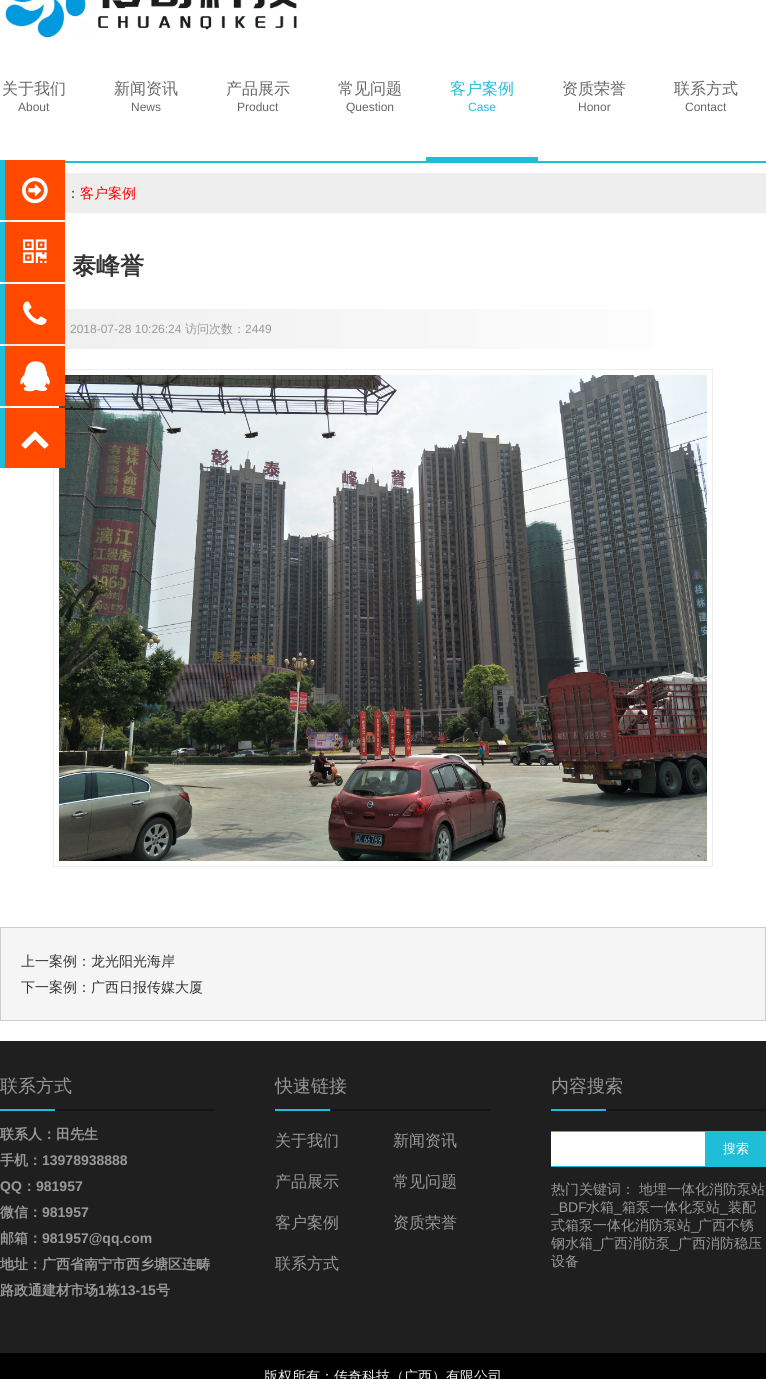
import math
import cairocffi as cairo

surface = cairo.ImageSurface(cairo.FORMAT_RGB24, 766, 1379)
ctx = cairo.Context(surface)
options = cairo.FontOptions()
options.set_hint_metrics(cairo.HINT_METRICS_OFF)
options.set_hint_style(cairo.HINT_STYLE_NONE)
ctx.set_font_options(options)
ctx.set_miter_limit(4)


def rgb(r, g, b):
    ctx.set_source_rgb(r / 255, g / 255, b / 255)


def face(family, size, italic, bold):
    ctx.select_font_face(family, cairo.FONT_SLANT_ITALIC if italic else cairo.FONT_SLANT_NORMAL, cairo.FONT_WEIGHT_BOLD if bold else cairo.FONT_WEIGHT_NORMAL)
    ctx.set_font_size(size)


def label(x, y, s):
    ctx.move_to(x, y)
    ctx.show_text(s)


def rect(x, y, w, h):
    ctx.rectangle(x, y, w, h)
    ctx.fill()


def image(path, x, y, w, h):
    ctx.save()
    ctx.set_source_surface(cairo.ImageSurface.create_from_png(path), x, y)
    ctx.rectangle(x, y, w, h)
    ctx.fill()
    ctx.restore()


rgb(255, 255, 255)
ctx.paint()
rgb(31, 189, 216)
rect(65, 161, 701, 2)
image('image0.png', 5, 0, 292, 38)
face('WenQuanYi Zen Hei Medium', 16, 0, 0)
rgb(102, 102, 102)
label(2, 94, '关于我们')
face('Liberation Sans', 12, 0, 0)
label(18, 111, 'About')
face('WenQuanYi Zen Hei Medium', 16, 0, 0)
label(114, 94, '新闻资讯')
face('Liberation Sans', 12, 0, 0)
label(131, 111, 'News')
face('WenQuanYi Zen Hei Medium', 16, 0, 0)
label(226, 94, '产品展示')
face('Liberation Sans', 12, 0, 0)
label(237, 111, 'Product')
face('WenQuanYi Zen Hei Medium', 16, 0, 0)
label(338, 94, '常见问题')
face('Liberation Sans', 12, 0, 0)
label(346, 111, 'Question')
rgb(31, 189, 216)
rect(426, 157, 112, 4)
face('WenQuanYi Zen Hei Medium', 16, 0, 0)
label(450, 94, '客户案例')
face('Liberation Sans', 12, 0, 0)
label(468, 111, 'Case')
face('WenQuanYi Zen Hei Medium', 16, 0, 0)
rgb(102, 102, 102)
label(562, 94, '资质荣誉')
face('Liberation Sans', 12, 0, 0)
label(578, 111, 'Honor')
face('WenQuanYi Zen Hei Medium', 16, 0, 0)
label(674, 94, '联系方式')
face('Liberation Sans', 12, 0, 0)
label(685, 111, 'Contact')
rgb(255, 74, 0)
rect(5, 160, 60, 60)
rgb(31, 189, 216)
rect(0, 160, 5, 60)
image('image1.png', 22, 177, 26, 27)
rgb(255, 74, 0)
rect(5, 222, 60, 60)
rgb(31, 189, 216)
rect(0, 222, 5, 60)
image('image2.png', 23, 239, 24, 24)
gradient = cairo.LinearGradient(0, 329, 766, 329)
gradient.add_color_stop_rgba(0, 0.933, 0.933, 0.933, 1)
gradient.add_color_stop_rgba(1, 1, 1, 1, 1)
ctx.set_source(gradient)
rect(0, 309, 653, 40)
rgb(255, 74, 0)
rect(5, 284, 60, 60)
rgb(31, 189, 216)
rect(0, 284, 5, 60)
image('image3.png', 23, 301, 24, 24)
ctx.rectangle(53.5, 369.5, 659, 497)
rgb(238, 238, 238)
ctx.set_line_width(1)
ctx.stroke()
image('image6.png', 59, 375, 648, 486)
rgb(255, 74, 0)
rect(5, 346, 60, 60)
rgb(31, 189, 216)
rect(0, 346, 5, 60)
image('image4.png', 20, 361, 30, 31)
rgb(255, 74, 0)
rect(5, 408, 60, 60)
rgb(31, 189, 216)
rect(0, 408, 5, 60)
image('image5.png', 21, 431, 28, 18)
rgb(238, 238, 238)
rect(65, 173, 701, 40)
face('WenQuanYi Zen Hei Medium', 14, 0, 0)
rgb(51, 51, 51)
label(66, 198, '：')
rgb(255, 0, 0)
label(80, 198, '客户案例')
face('WenQuanYi Zen Hei', 24, 0, 1)
rgb(51, 51, 51)
label(72, 274, '泰峰誉')
face('Liberation Sans', 12, 0, 0)
rgb(153, 153, 153)
label(70, 333, '2018-07-28 10:26:24')
face('WenQuanYi Zen Hei Medium', 12, 0, 0)
label(185, 333, '访问次数：')
face('Liberation Sans', 12, 0, 0)
label(245, 333, '2449')
rgb(245, 245, 245)
ctx.rectangle(0.5, 927.5, 765, 93)
ctx.fill_preserve()
rgb(204, 204, 204)
ctx.stroke()
face('WenQuanYi Zen Hei Medium', 14, 0, 0)
rgb(51, 51, 51)
label(21, 966, '上一案例：龙光阳光海岸')
label(21, 992, '下一案例：广西日报传媒大厦')
rgb(31, 31, 31)
rect(0, 1041, 766, 312)
image('image7.png', 0, 1109, 215, 2)
face('WenQuanYi Zen Hei Medium', 18, 0, 0)
rgb(153, 153, 153)
label(0, 1092, '联系方式')
face('WenQuanYi Zen Hei', 14, 0, 1)
label(0, 1139, '联系人：田先生')
label(0, 1165, '手机：')
face('Liberation Sans', 14, 0, 1)
label(42, 1165, '13978938888')
label(0, 1191, 'QQ')
face('WenQuanYi Zen Hei', 14, 0, 1)
label(22, 1191, '：')
face('Liberation Sans', 14, 0, 1)
label(36, 1191, '981957')
face('WenQuanYi Zen Hei', 14, 0, 1)
label(0, 1217, '微信：')
face('Liberation Sans', 14, 0, 1)
label(42, 1217, '981957')
face('WenQuanYi Zen Hei', 14, 0, 1)
label(0, 1243, '邮箱：')
face('Liberation Sans', 14, 0, 1)
label(42, 1243, '981957@qq.com')
face('WenQuanYi Zen Hei', 14, 0, 1)
label(0, 1269, '地址：广西省南宁市西乡塘区连畴')
label(0, 1295, '路政通建材市场')
face('Liberation Sans', 14, 0, 1)
label(98, 1295, '1')
face('WenQuanYi Zen Hei', 14, 0, 1)
label(106, 1295, '栋')
face('Liberation Sans', 14, 0, 1)
label(120, 1295, '13-15')
face('WenQuanYi Zen Hei', 14, 0, 1)
label(156, 1295, '号')
image('image8.png', 275, 1109, 216, 2)
face('WenQuanYi Zen Hei Medium', 18, 0, 0)
label(275, 1092, '快速链接')
face('WenQuanYi Zen Hei Medium', 16, 0, 0)
label(275, 1146, '关于我们')
label(393, 1146, '新闻资讯')
label(275, 1187, '产品展示')
label(393, 1187, '常见问题')
label(275, 1228, '客户案例')
label(393, 1228, '资质荣誉')
label(275, 1269, '联系方式')
image('image7.png', 551, 1109, 215, 2)
face('WenQuanYi Zen Hei Medium', 18, 0, 0)
label(551, 1092, '内容搜索')
rgb(255, 255, 255)
rect(551, 1132, 154, 34)
ctx.save()
ctx.rectangle(551, 1111, 215, 170)
ctx.clip()
ctx.rectangle(446.5, 1131.5, 259, 35)
rgb(31, 189, 216)
ctx.stroke()
ctx.restore()
rgb(31, 189, 216)
rect(706, 1131, 60, 36)
face('WenQuanYi Zen Hei Medium', 13, 0, 0)
rgb(255, 255, 255)
label(723, 1153, '搜索')
face('WenQuanYi Zen Hei Medium', 14, 0, 0)
rgb(153, 153, 153)
label(551, 1194, '热门关键词：')
label(639, 1194, '地埋一体化消防泵站')
face('Liberation Sans', 14, 0, 0)
label(551, 1212, '_BDF')
face('WenQuanYi Zen Hei Medium', 14, 0, 0)
label(586, 1212, '水箱')
face('Liberation Sans', 14, 0, 0)
label(614, 1212, '_')
face('WenQuanYi Zen Hei Medium', 14, 0, 0)
label(622, 1212, '箱泵一体化泵站')
face('Liberation Sans', 14, 0, 0)
label(720, 1212, '_')
face('WenQuanYi Zen Hei Medium', 14, 0, 0)
label(728, 1212, '装配')
label(551, 1230, '式箱泵一体化消防泵站')
face('Liberation Sans', 14, 0, 0)
label(691, 1230, '_')
face('WenQuanYi Zen Hei Medium', 14, 0, 0)
label(698, 1230, '广西不锈')
label(551, 1248, '钢水箱')
face('Liberation Sans', 14, 0, 0)
label(593, 1248, '_')
face('WenQuanYi Zen Hei Medium', 14, 0, 0)
label(600, 1248, '广西消防泵')
face('Liberation Sans', 14, 0, 0)
label(670, 1248, '_')
face('WenQuanYi Zen Hei Medium', 14, 0, 0)
label(678, 1248, '广西消防稳压')
label(551, 1266, '设备')
rgb(0, 0, 0)
rect(0, 1353, 766, 26)
rgb(238, 238, 238)
label(264, 1381, '版权所有：传奇科技（广西）有限公司')
surface.write_to_png('render.png')
